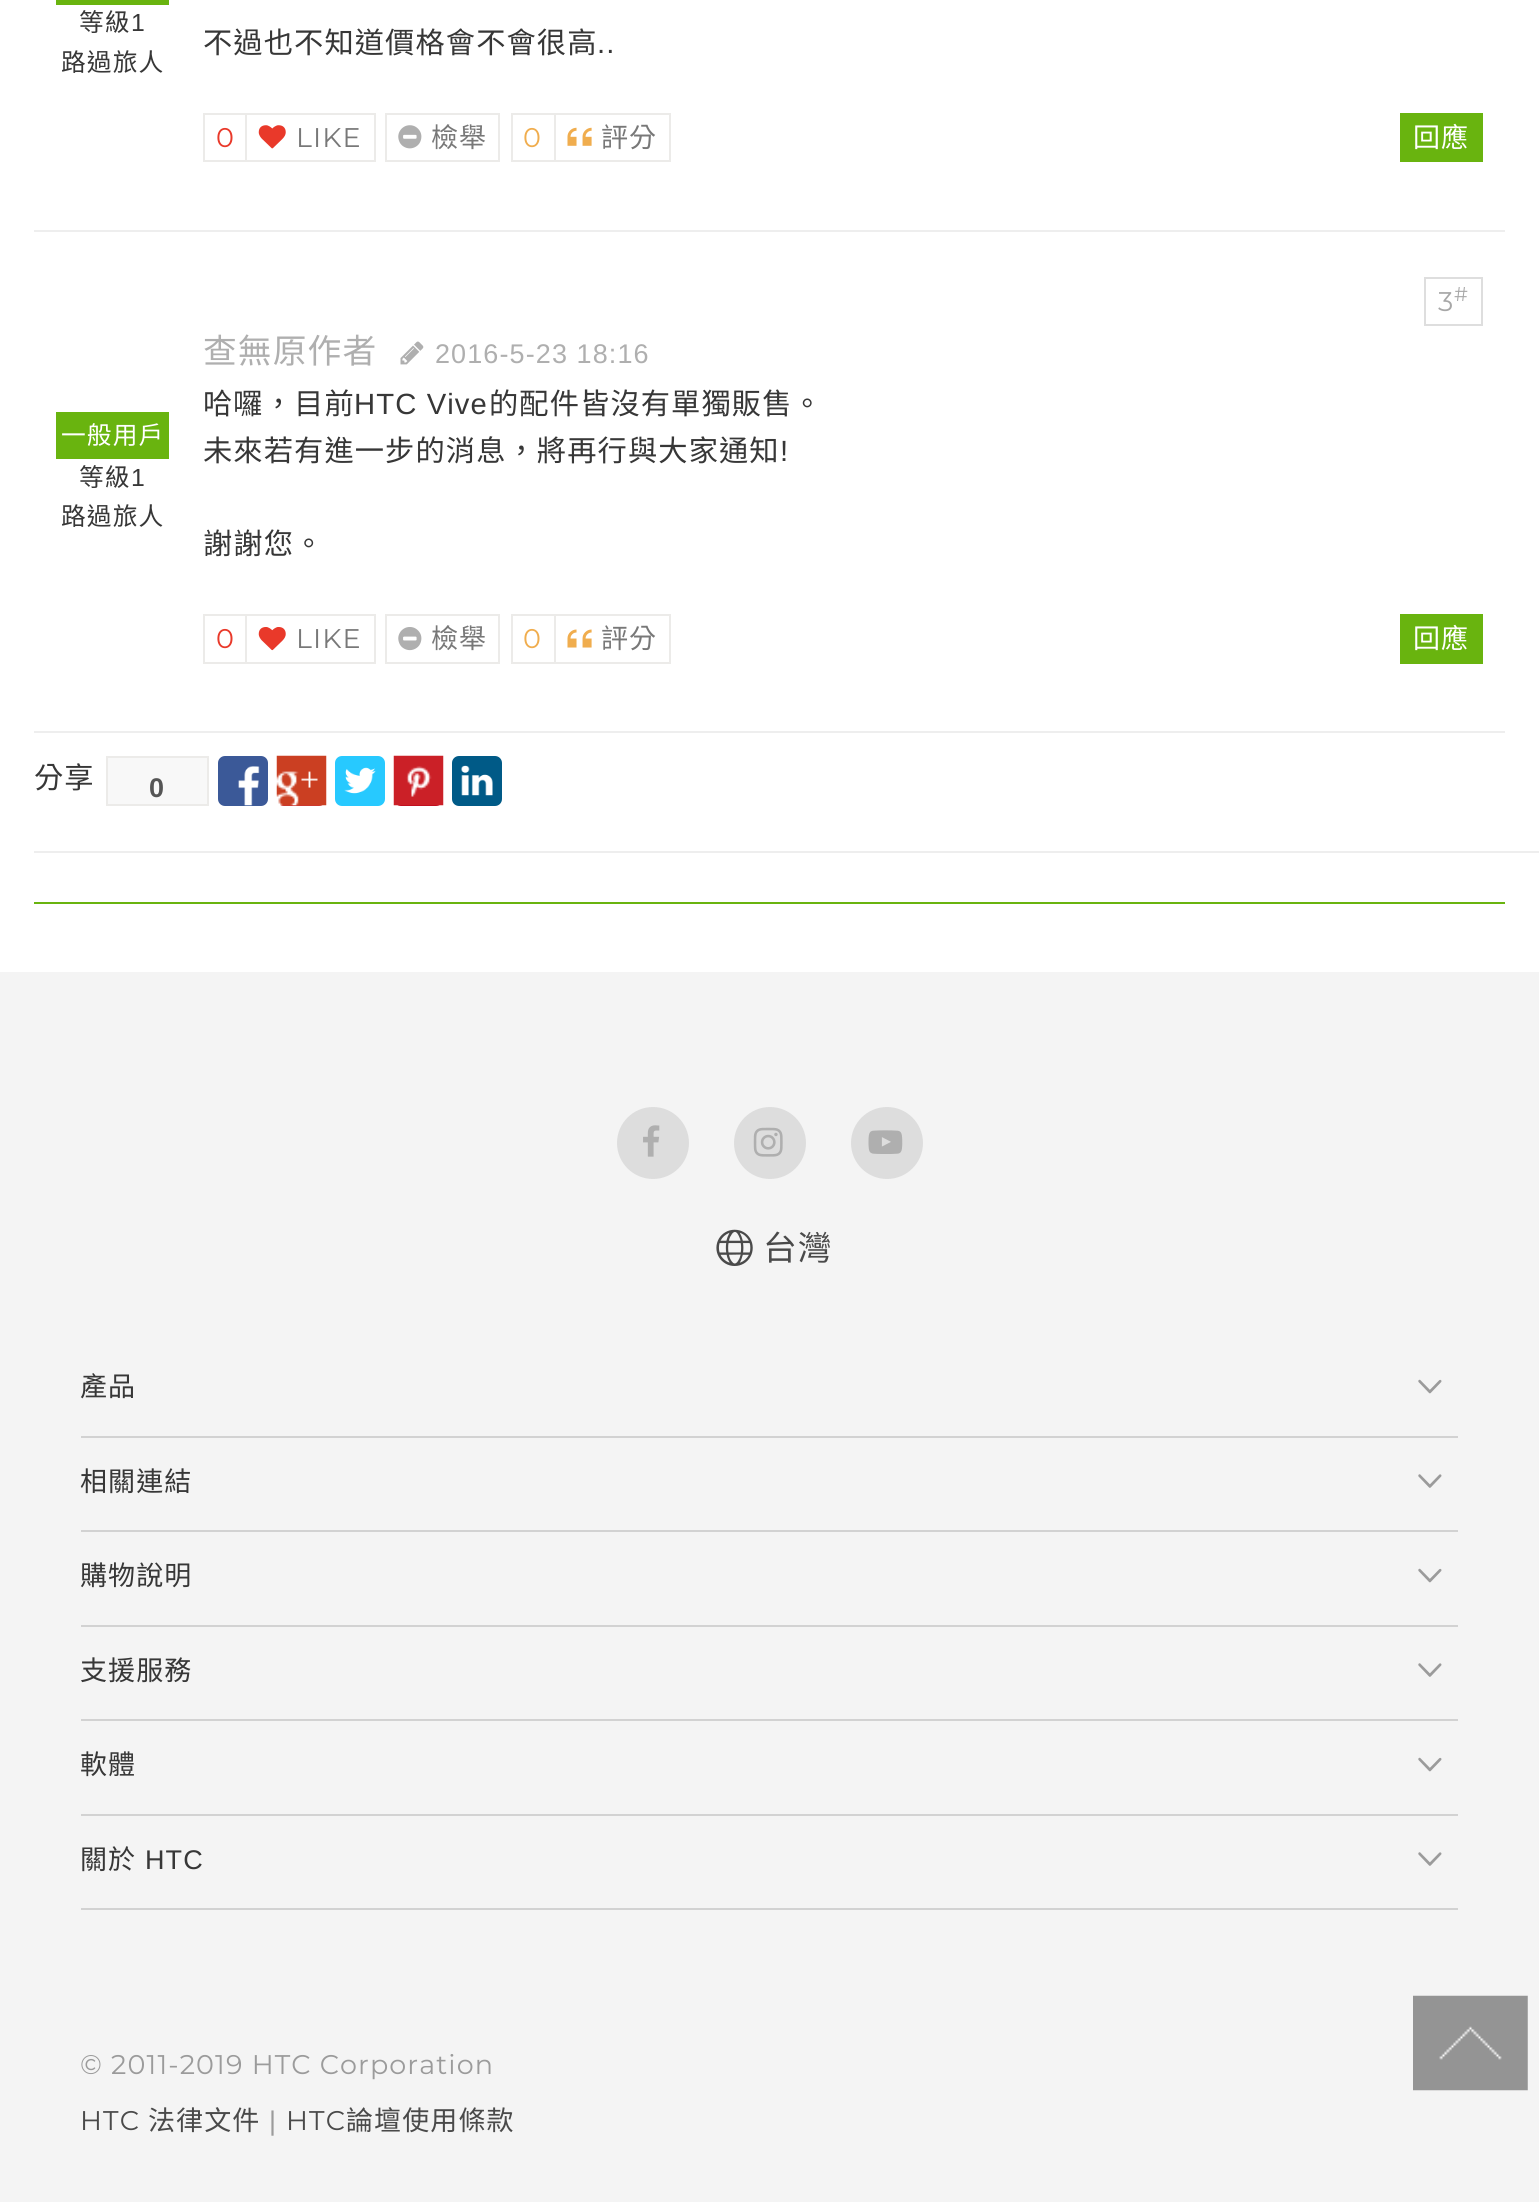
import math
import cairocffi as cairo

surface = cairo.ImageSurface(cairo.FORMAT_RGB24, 1539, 2202)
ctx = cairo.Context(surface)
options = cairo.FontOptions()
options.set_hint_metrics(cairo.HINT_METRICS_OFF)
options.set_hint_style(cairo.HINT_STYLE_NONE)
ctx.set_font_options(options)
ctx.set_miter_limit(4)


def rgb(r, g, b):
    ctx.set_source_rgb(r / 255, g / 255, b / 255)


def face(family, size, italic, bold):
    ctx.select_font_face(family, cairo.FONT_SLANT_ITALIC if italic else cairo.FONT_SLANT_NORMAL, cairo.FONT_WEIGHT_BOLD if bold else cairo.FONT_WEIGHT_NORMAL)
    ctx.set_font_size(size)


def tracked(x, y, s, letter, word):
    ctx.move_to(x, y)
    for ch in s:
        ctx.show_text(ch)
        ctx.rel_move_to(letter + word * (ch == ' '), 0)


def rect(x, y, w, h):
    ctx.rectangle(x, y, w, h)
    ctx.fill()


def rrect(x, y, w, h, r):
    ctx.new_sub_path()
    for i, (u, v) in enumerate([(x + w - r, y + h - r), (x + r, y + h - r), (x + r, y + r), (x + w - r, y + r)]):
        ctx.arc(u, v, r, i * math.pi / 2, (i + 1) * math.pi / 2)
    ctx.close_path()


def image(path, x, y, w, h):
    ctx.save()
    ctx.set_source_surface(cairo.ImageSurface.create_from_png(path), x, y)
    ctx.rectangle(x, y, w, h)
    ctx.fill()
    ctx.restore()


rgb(255, 255, 255)
ctx.paint()
rgb(105, 180, 15)
rect(56, 0, 113, 5)
face('Noto Sans CJK TC', 24.75, 0, 0)
rgb(55, 55, 55)
tracked(79, 31, '等級', 1.1, 0)
face('Liberation Sans', 24.75, 0, 0)
tracked(131, 31, '1', 1.1, 0)
face('Noto Sans CJK TC', 24.75, 0, 0)
tracked(61, 71, '路過旅人', 1.1, 0)
face('Noto Sans CJK TC', 29.25, 0, 0)
tracked(203, 53, '不過也不知道價格會不會很高', 1.1, 0)
face('Liberation Sans', 29.25, 0, 0)
tracked(597, 53, '..', 1.1, 0)
ctx.rectangle(204, 114, 43, 47)
rgb(236, 235, 233)
ctx.stroke()
face('Montserrat', 27, 0, 0)
rgb(233, 57, 42)
tracked(216, 147, '0', 1.1, 0)
rgb(255, 255, 255)
rect(247, 115, 1, 45)
ctx.rectangle(246, 114, 129, 47)
rgb(236, 235, 233)
ctx.stroke()
image('image0.png', 258, 125, 28, 24)
rgb(120, 120, 120)
tracked(296, 147, 'LIKE', 1.1, 0)
ctx.rectangle(386, 114, 113, 47)
rgb(236, 235, 233)
ctx.stroke()
image('image1.png', 398, 125, 24, 24)
face('Noto Sans TC', 27, 0, 0)
rgb(120, 120, 120)
tracked(431, 147, '檢舉', 1.1, 0)
ctx.rectangle(512, 114, 43, 47)
rgb(236, 235, 233)
ctx.stroke()
face('Montserrat', 27, 0, 0)
rgb(240, 173, 78)
tracked(523, 147, '0', 1.1, 0)
ctx.rectangle(555, 114, 115, 47)
rgb(236, 235, 233)
ctx.stroke()
image('image2.png', 567, 127, 25, 19)
face('Noto Sans TC', 27, 0, 0)
rgb(120, 120, 120)
tracked(601, 147, '評分', 1.1, 0)
rgb(105, 180, 15)
rect(1400, 113, 83, 49)
rgb(255, 255, 255)
tracked(1413, 147, '回應', 1.1, 0)
rgb(238, 238, 238)
rect(34, 230, 1471, 2)
rgb(105, 180, 15)
rect(56, 412, 113, 47)
face('Noto Sans TC', 24.75, 0, 0)
rgb(255, 255, 255)
tracked(61, 444, '一般用戶', 1.1, 0)
face('Noto Sans CJK TC', 24.75, 0, 0)
rgb(55, 55, 55)
tracked(79, 486, '等級', 1.1, 0)
face('Liberation Sans', 24.75, 0, 0)
tracked(131, 486, '1', 1.1, 0)
face('Noto Sans CJK TC', 24.75, 0, 0)
tracked(61, 525, '路過旅人', 1.1, 0)
ctx.rectangle(1425, 278, 57, 47)
rgb(222, 222, 222)
ctx.stroke()
face('Montserrat', 27, 0, 0)
rgb(167, 167, 167)
tracked(1438, 311, '3', 1.1, 0)
face('Montserrat', 20, 0, 0)
tracked(1454, 301, '#', 1.1, 0)
face('Noto Sans TC', 33.75, 0, 0)
rgb(175, 175, 175)
tracked(203, 363, '查無原作者', 1.1, 0)
image('image3.png', 400, 341, 24, 24)
face('Liberation Sans', 27, 0, 0)
tracked(435, 363, '2016-5-23 18:16', 1.1, 0)
face('Noto Sans CJK TC', 29.25, 0, 0)
rgb(55, 55, 55)
tracked(203, 414, '哈囉，目前', 1.1, 0)
face('Liberation Sans', 29.25, 0, 0)
tracked(354, 414, 'HTC Vive', 1.1, 0)
face('Noto Sans CJK TC', 29.25, 0, 0)
tracked(489, 414, '的配件皆沒有單獨販售。', 1.1, 0)
tracked(203, 461, '未來若有進一步的消息，將再行與大家通知', 1.1, 0)
face('Liberation Sans', 29.25, 0, 0)
tracked(780, 461, '!', 1.1, 0)
face('Noto Sans CJK TC', 29.25, 0, 0)
tracked(203, 554, '謝謝您。', 1.1, 0)
ctx.rectangle(204, 615, 43, 48)
rgb(236, 235, 233)
ctx.stroke()
face('Montserrat', 27, 0, 0)
rgb(233, 57, 42)
tracked(216, 648, '0', 1.1, 0)
rgb(255, 255, 255)
rect(247, 616, 1, 46)
ctx.rectangle(246, 615, 129, 48)
rgb(236, 235, 233)
ctx.stroke()
image('image4.png', 258, 627, 28, 24)
rgb(120, 120, 120)
tracked(296, 648, 'LIKE', 1.1, 0)
ctx.rectangle(386, 615, 113, 48)
rgb(236, 235, 233)
ctx.stroke()
image('image5.png', 398, 627, 24, 24)
face('Noto Sans TC', 27, 0, 0)
rgb(120, 120, 120)
tracked(431, 648, '檢舉', 1.1, 0)
ctx.rectangle(512, 615, 43, 48)
rgb(236, 235, 233)
ctx.stroke()
face('Montserrat', 27, 0, 0)
rgb(240, 173, 78)
tracked(523, 648, '0', 1.1, 0)
ctx.rectangle(555, 615, 115, 48)
rgb(236, 235, 233)
ctx.stroke()
image('image6.png', 567, 629, 25, 19)
face('Noto Sans TC', 27, 0, 0)
rgb(120, 120, 120)
tracked(601, 648, '評分', 1.1, 0)
rgb(105, 180, 15)
rect(1400, 614, 83, 50)
rgb(255, 255, 255)
tracked(1413, 648, '回應', 1.1, 0)
rgb(238, 238, 238)
rect(34, 731, 1471, 2)
face('Noto Sans CJK TC', 29.25, 0, 0)
rgb(55, 55, 55)
tracked(34, 788, '分享', 1.1, 0)
rgb(248, 248, 248)
ctx.rectangle(107, 757, 101, 48)
ctx.fill_preserve()
rgb(236, 235, 233)
ctx.stroke()
face('Liberation Sans', 27, 0, 1)
rgb(85, 85, 85)
tracked(149, 797, '0', 1.1, 0)
rgb(59, 89, 152)
rrect(218, 756, 50, 50, 7)
ctx.fill()
image('image7.png', 238, 766, 22, 40)
rgb(204, 55, 50)
rrect(277, 756, 49, 50, 7)
ctx.fill()
image('image8.png', 276, 755, 51, 51)
rgb(39, 201, 255)
rrect(335, 756, 50, 50, 7)
ctx.fill()
image('image9.png', 344, 767, 32, 27)
rgb(190, 10, 30)
rrect(394, 756, 49, 50, 7)
ctx.fill()
image('image10.png', 393, 755, 51, 51)
rgb(0, 90, 135)
rrect(452, 756, 50, 50, 7)
ctx.fill()
image('image11.png', 461, 765, 32, 31)
rgb(238, 238, 238)
rect(34, 851, 1505, 2)
rgb(105, 180, 15)
rect(34, 902, 1471, 2)
rgb(244, 244, 244)
rect(0, 972, 1539, 1230)
rgb(221, 221, 221)
ctx.arc(653, 1143, 36, 0, 2 * math.pi)
ctx.fill()
image('image12.png', 643, 1125, 17, 32)
ctx.arc(770, 1143, 36, 0, 2 * math.pi)
ctx.fill()
image('image13.png', 753, 1127, 30, 30)
ctx.arc(887, 1143, 36, 0, 2 * math.pi)
ctx.fill()
image('image14.png', 868, 1130, 35, 24)
image('image15.png', 716, 1229, 37, 37)
face('Noto Sans TC', 33.75, 0, 0)
rgb(74, 74, 74)
tracked(763, 1260, '台灣', 1.1, 0)
rgb(210, 210, 210)
rect(81, 1436, 1377, 2)
face('Noto Sans CJK TC', 27, 0, 0)
rgb(55, 55, 55)
tracked(80, 1396, '產品', 1.1, 0)
image('image16.png', 1418, 1379, 24, 15)
rgb(210, 210, 210)
rect(81, 1530, 1377, 2)
rgb(55, 55, 55)
tracked(80, 1491, '相關連結', 1.1, 0)
image('image17.png', 1418, 1474, 24, 14)
rgb(210, 210, 210)
rect(81, 1625, 1377, 2)
rgb(55, 55, 55)
tracked(80, 1585, '購物說明', 1.1, 0)
image('image16.png', 1418, 1568, 24, 15)
rgb(210, 210, 210)
rect(81, 1719, 1377, 2)
rgb(55, 55, 55)
tracked(80, 1680, '支援服務', 1.1, 0)
image('image17.png', 1418, 1663, 24, 14)
rgb(210, 210, 210)
rect(81, 1814, 1377, 2)
rgb(55, 55, 55)
tracked(80, 1774, '軟體', 1.1, 0)
image('image16.png', 1418, 1757, 24, 15)
rgb(210, 210, 210)
rect(81, 1908, 1377, 2)
rgb(55, 55, 55)
tracked(80, 1869, '關於', 1.1, 0)
face('Liberation Sans', 27, 0, 0)
tracked(145, 1869, 'HTC', 1.1, 0)
image('image17.png', 1418, 1852, 24, 14)
face('Montserrat', 27, 0, 0)
rgb(155, 155, 155)
tracked(80, 2074, '© 2011-2019 HTC Corporation', 1.1, 0)
rgb(74, 74, 74)
tracked(80, 2130, 'HTC', 1.1, 0)
face('Noto Sans TC', 27, 0, 0)
tracked(148, 2130, '法律文件', 1.1, 0)
face('Liberation Sans', 27, 0, 0)
rgb(155, 155, 155)
tracked(269, 2130, '|', 1.1, 0)
face('Montserrat', 27, 0, 0)
rgb(74, 74, 74)
tracked(286, 2130, 'HTC', 1.1, 0)
face('Noto Sans TC', 27, 0, 0)
tracked(346, 2130, '論壇使用條款', 1.1, 0)
image('image18.png', 1413, 1995, 115, 96)
surface.write_to_png('render.png')
